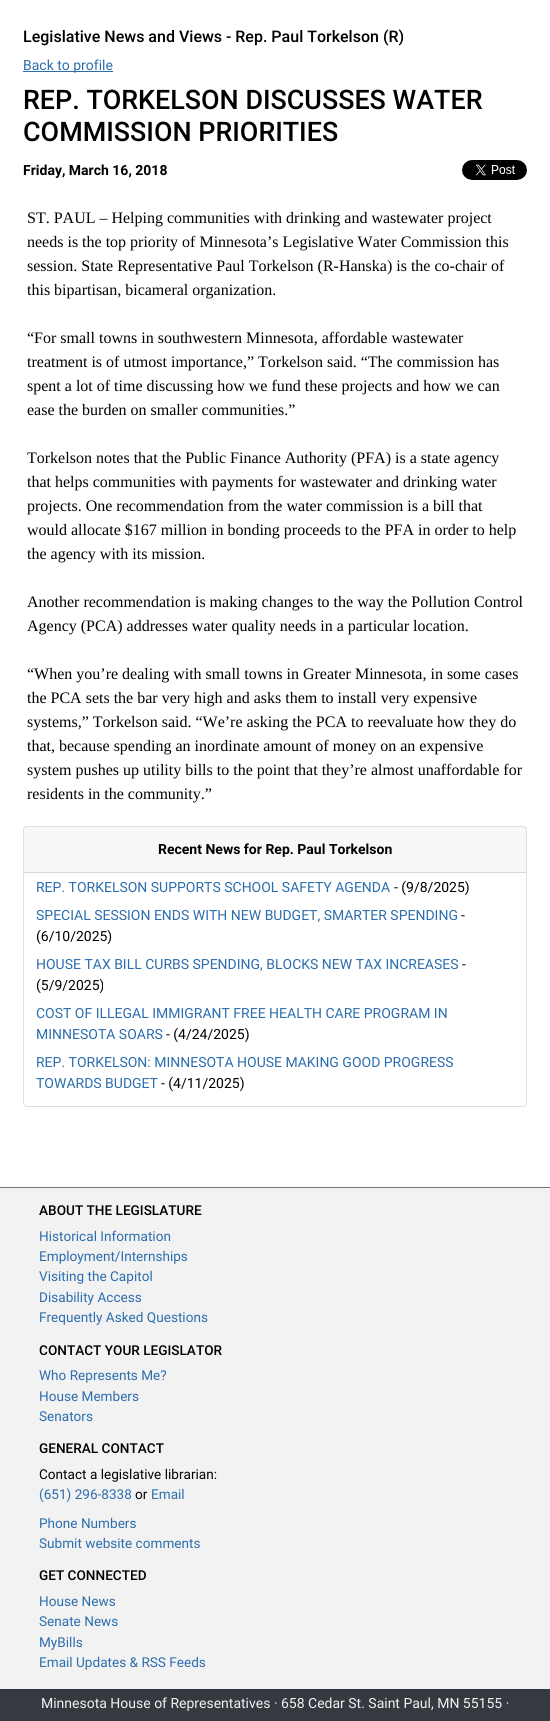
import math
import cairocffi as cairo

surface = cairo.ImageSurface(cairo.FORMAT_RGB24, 550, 1721)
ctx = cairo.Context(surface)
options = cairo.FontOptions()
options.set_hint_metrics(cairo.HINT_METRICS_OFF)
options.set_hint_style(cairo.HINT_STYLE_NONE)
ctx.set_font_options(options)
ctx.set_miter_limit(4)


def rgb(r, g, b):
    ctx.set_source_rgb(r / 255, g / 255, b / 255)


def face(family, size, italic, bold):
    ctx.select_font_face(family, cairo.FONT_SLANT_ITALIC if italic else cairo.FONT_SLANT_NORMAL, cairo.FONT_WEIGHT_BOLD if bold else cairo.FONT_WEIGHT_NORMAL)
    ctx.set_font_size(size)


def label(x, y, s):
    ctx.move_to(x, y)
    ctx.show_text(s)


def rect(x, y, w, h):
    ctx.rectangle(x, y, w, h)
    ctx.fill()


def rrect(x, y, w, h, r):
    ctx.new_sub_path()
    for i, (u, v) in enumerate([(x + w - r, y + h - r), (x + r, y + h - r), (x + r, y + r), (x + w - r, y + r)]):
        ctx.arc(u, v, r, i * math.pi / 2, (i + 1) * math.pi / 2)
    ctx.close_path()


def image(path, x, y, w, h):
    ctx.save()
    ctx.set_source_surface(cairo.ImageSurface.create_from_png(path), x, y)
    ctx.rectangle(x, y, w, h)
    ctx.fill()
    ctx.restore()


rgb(255, 255, 255)
ctx.paint()
face('Roboto Medium', 16, 0, 0)
rgb(0, 0, 0)
label(23, 42, 'Legislative News and Views - Rep. Paul Torkelson (R)')
rgb(43, 109, 173)
rect(23, 71, 90, 1)
face('Roboto', 14, 0, 0)
label(23, 70, 'Back to profile')
face('Roboto Medium', 26.9, 0, 0)
rgb(0, 0, 0)
label(23, 109, 'REP. TORKELSON DISCUSSES WATER')
label(23, 141, 'COMMISSION PRIORITIES')
face('Roboto', 14, 0, 1)
label(23, 175, 'Friday, March 16, 2018')
image('image0.png', 462, 160, 65, 20)
face('Liberation Serif', 16, 0, 0)
label(27, 223, 'ST. PAUL – Helping communities with drinking and wastewater project')
label(27, 247, 'needs is the top priority of Minnesota’s Legislative Water Commission this')
label(27, 271, 'session. State Representative Paul Torkelson (R-Hanska) is the co-chair of')
label(27, 295, 'this bipartisan, bicameral organization.')
label(27, 343, '“For small towns in southwestern Minnesota, affordable wastewater')
label(27, 367, 'treatment is of utmost importance,” Torkelson said. “The commission has')
label(27, 391, 'spent a lot of time discussing how we fund these projects and how we can')
label(27, 415, 'ease the burden on smaller communities.”')
label(27, 463, 'Torkelson notes that the Public Finance Authority (PFA) is a state agency')
label(27, 487, 'that helps communities with payments for wastewater and drinking water')
label(27, 511, 'projects. One recommendation from the water commission is a bill that')
label(27, 535, 'would allocate $167 million in bonding proceeds to the PFA in order to help')
label(27, 559, 'the agency with its mission.')
label(27, 607, 'Another recommendation is making changes to the way the Pollution Control')
label(27, 631, 'Agency (PCA) addresses water quality needs in a particular location.')
label(27, 679, '“When you’re dealing with small towns in Greater Minnesota, in some cases')
label(27, 703, 'the PCA sets the bar very high and asks them to install very expensive')
label(27, 727, 'systems,” Torkelson said. “We’re asking the PCA to reevaluate how they do')
label(27, 751, 'that, because spending an inordinate amount of money on an expensive')
label(27, 775, 'system pushes up utility bills to the point that they’re almost unaffordable for')
label(27, 799, 'residents in the community.”')
rrect(23.5, 826.5, 503, 280, 3.5)
rgb(223, 223, 223)
ctx.set_line_width(1)
ctx.stroke()
ctx.set_source_rgba(0, 0, 0, 0.03)
rect(24, 827, 502, 45)
rgb(216, 216, 216)
rect(24, 872, 502, 1)
face('Roboto', 14, 0, 1)
rgb(0, 0, 0)
label(158, 854, 'Recent News for Rep. Paul Torkelson')
face('Roboto', 14, 0, 0)
rgb(43, 109, 173)
label(36, 892, 'REP. TORKELSON SUPPORTS SCHOOL SAFETY AGENDA')
rgb(0, 0, 0)
label(394, 892, '- (9/8/2025)')
rgb(43, 109, 173)
label(36, 920, 'SPECIAL SESSION ENDS WITH NEW BUDGET, SMARTER SPENDING')
rgb(0, 0, 0)
label(461, 920, '-')
label(36, 941, '(6/10/2025)')
rgb(43, 109, 173)
label(36, 969, 'HOUSE TAX BILL CURBS SPENDING, BLOCKS NEW TAX INCREASES')
rgb(0, 0, 0)
label(462, 969, '-')
label(36, 990, '(5/9/2025)')
rgb(43, 109, 173)
label(36, 1018, 'COST OF ILLEGAL IMMIGRANT FREE HEALTH CARE PROGRAM IN')
label(36, 1039, 'MINNESOTA SOARS')
rgb(0, 0, 0)
label(166, 1039, '- (4/24/2025)')
rgb(43, 109, 173)
label(36, 1067, 'REP. TORKELSON: MINNESOTA HOUSE MAKING GOOD PROGRESS')
label(36, 1088, 'TOWARDS BUDGET')
rgb(0, 0, 0)
label(161, 1088, '- (4/11/2025)')
rgb(242, 242, 242)
rect(0, 1188, 550, 501)
rgb(115, 115, 115)
rect(0, 1187, 550, 1)
face('Roboto Medium', 13.6, 0, 0)
rgb(0, 0, 0)
label(39, 1215, 'ABOUT THE LEGISLATURE')
face('Roboto', 13.6, 0, 0)
rgb(43, 109, 173)
label(39, 1241, 'Historical Information')
label(39, 1261, 'Employment/Internships')
label(39, 1281, 'Visiting the Capitol')
label(39, 1302, 'Disability Access')
label(39, 1322, 'Frequently Asked Questions')
face('Roboto Medium', 13.6, 0, 0)
rgb(0, 0, 0)
label(39, 1355, 'CONTACT YOUR LEGISLATOR')
face('Roboto', 13.6, 0, 0)
rgb(43, 109, 173)
label(39, 1380, 'Who Represents Me?')
label(39, 1401, 'House Members')
label(39, 1421, 'Senators')
face('Roboto Medium', 13.6, 0, 0)
rgb(0, 0, 0)
label(39, 1453, 'GENERAL CONTACT')
face('Roboto', 13.6, 0, 0)
label(39, 1479, 'Contact a legislative librarian:')
rgb(43, 109, 173)
label(39, 1499, '(651) 296-8338')
rgb(0, 0, 0)
label(135, 1499, 'or')
rgb(43, 109, 173)
label(151, 1499, 'Email')
label(39, 1528, 'Phone Numbers')
label(39, 1548, 'Submit website comments')
face('Roboto Medium', 13.6, 0, 0)
rgb(0, 0, 0)
label(39, 1580, 'GET CONNECTED')
face('Roboto', 13.6, 0, 0)
rgb(43, 109, 173)
label(39, 1606, 'House News')
label(39, 1626, 'Senate News')
label(39, 1647, 'MyBills')
label(39, 1667, 'Email Updates & RSS Feeds')
rgb(52, 58, 64)
rect(0, 1689, 550, 32)
face('Roboto', 14, 0, 0)
rgb(242, 242, 242)
label(41, 1708, 'Minnesota House of Representatives · 658 Cedar St. Saint Paul, MN 55155 ·')
surface.write_to_png('render.png')
